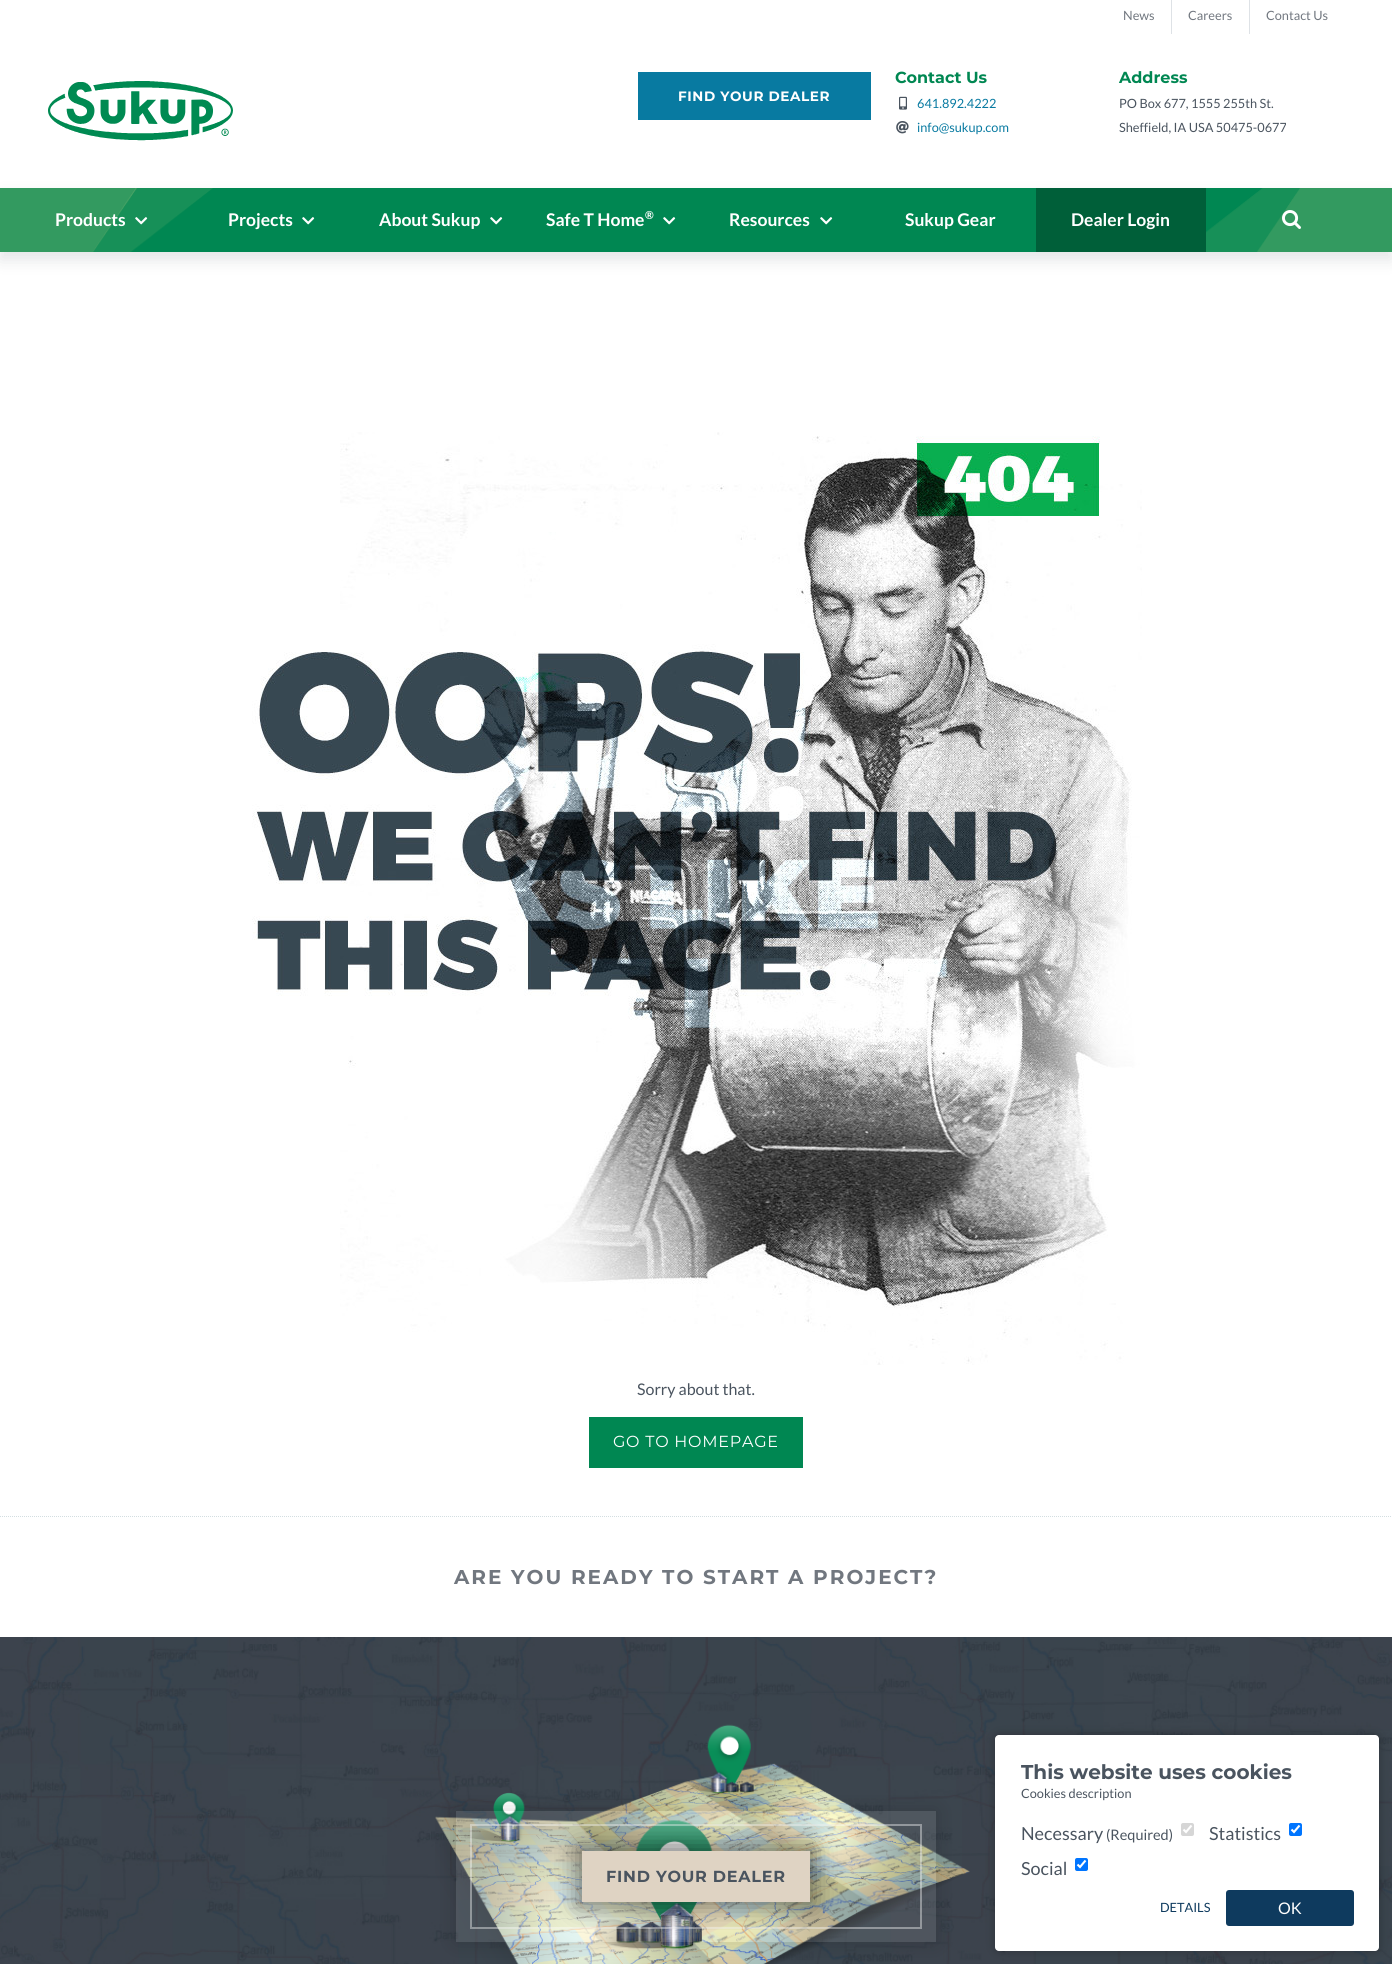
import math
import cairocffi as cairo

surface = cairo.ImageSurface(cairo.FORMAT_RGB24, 1392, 1964)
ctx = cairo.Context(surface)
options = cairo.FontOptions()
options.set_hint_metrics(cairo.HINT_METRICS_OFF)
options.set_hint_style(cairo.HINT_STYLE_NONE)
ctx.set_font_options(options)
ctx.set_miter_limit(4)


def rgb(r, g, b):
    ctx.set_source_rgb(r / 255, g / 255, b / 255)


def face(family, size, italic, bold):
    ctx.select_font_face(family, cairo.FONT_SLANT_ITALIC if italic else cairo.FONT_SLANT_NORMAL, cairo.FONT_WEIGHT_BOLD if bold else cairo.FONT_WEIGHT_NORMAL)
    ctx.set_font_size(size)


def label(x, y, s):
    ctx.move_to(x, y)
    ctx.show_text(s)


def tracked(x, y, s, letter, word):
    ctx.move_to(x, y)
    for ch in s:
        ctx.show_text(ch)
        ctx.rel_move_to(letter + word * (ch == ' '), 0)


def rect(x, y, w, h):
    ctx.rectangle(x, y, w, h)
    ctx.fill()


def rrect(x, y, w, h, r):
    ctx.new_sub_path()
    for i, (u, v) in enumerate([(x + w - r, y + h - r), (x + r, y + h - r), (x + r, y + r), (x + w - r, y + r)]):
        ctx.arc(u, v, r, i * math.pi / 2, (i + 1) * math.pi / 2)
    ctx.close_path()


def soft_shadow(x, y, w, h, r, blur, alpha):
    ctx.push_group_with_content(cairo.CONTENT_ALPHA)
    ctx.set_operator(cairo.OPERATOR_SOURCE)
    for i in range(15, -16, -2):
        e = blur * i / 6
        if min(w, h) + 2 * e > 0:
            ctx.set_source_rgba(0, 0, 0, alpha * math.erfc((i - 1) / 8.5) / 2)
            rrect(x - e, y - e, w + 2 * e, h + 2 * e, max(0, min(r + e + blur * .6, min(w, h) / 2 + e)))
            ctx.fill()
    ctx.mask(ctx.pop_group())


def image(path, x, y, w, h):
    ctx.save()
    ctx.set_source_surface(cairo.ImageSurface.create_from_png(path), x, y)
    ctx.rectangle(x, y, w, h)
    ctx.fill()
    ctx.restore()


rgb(255, 255, 255)
ctx.paint()
rgb(222, 226, 230)
rect(1171, 0, 1, 34)
face('Lato', 12.75, 0, 0)
rgb(113, 119, 127)
label(1123, 20, 'News')
rgb(222, 226, 230)
rect(1249, 0, 1, 34)
rgb(113, 119, 127)
label(1188, 20, 'Careers')
label(1266, 20, 'Contact Us')
image('image0.png', 48, 81, 185, 60)
rgb(8, 122, 161)
rect(638, 72, 233, 48)
face('Montserrat', 13.6, 0, 1)
rgb(255, 255, 255)
tracked(678, 101, 'FIND YOUR DEALER', 0.6, 0)
face('Montserrat', 16, 0, 1)
rgb(0, 135, 82)
label(895, 83, 'Contact Us')
image('image1.png', 899, 96, 8, 14)
face('Lato', 12.75, 0, 0)
rgb(8, 122, 161)
label(917, 108, '641.892.4222')
image('image2.png', 896, 121, 13, 13)
label(917, 132, 'info@sukup.com')
face('Montserrat', 16, 0, 1)
rgb(0, 135, 82)
label(1119, 83, 'Address')
face('Lato', 12.75, 0, 0)
rgb(74, 84, 95)
label(1119, 108, 'PO Box 677, 1555 255th St.')
label(1119, 132, 'Sheffield, IA USA 50475-0677')
rgb(74, 84, 95)
soft_shadow(0, 196, 1392, 64, 0, 8, 0.15)
rgb(0, 135, 82)
rect(0, 188, 1392, 64)
image('image3.png', 0, 188, 213, 64)
image('image4.png', 1206, 188, 186, 64)
face('Lato', 17.5, 0, 1)
rgb(255, 255, 255)
label(55, 226, 'Products')
image('image5.png', 135, 217, 13, 8)
label(228, 226, 'Projects')
image('image6.png', 302, 217, 13, 8)
label(379, 226, 'About Sukup')
image('image6.png', 490, 217, 13, 8)
label(546, 226, 'Safe T Home')
face('Lato', 11, 0, 1)
label(645, 219, '®')
image('image6.png', 663, 217, 13, 8)
face('Lato', 17.5, 0, 1)
label(729, 226, 'Resources')
image('image6.png', 820, 217, 13, 8)
label(905, 226, 'Sukup Gear')
rgb(0, 95, 57)
rect(1036, 188, 170, 64)
rgb(255, 255, 255)
label(1071, 226, 'Dealer Login')
image('image7.png', 1282, 210, 19, 19)
image('image8.png', 252, 432, 890, 933)
face('Lato', 16, 0, 0)
rgb(74, 84, 95)
label(637, 1395, 'Sorry about that.')
rgb(0, 135, 82)
rect(589, 1417, 214, 51)
face('Montserrat', 16, 0, 0)
rgb(255, 255, 255)
tracked(613, 1447, 'GO TO HOMEPAGE', 0.75, 0)
ctx.new_path()
ctx.move_to(0, 1516.5)
ctx.line_to(1392, 1516.5)
rgb(211, 222, 225)
ctx.set_line_width(1)
ctx.set_dash([1, 1])
ctx.stroke()
face('Montserrat', 20, 0, 1)
rgb(113, 119, 127)
tracked(454, 1584, 'ARE YOU READY TO START A PROJECT?', 2, 0)
image('image9.png', 0, 1637, 1392, 327)
image('image10.png', 435, 1724, 535, 240)
ctx.save()
ctx.set_fill_rule(cairo.FILL_RULE_EVEN_ODD)
ctx.new_path()
ctx.move_to(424, 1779)
ctx.line_to(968, 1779)
ctx.line_to(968, 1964)
ctx.line_to(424, 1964)
ctx.close_path()
ctx.move_to(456, 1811)
ctx.line_to(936, 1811)
ctx.line_to(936, 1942)
ctx.line_to(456, 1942)
ctx.close_path()
ctx.clip()
rgb(0, 0, 0)
soft_shadow(455, 1810, 482, 133, 0, 10, 0.15)
ctx.restore()
ctx.set_source_rgba(1, 1, 1, 0.1)
rect(456, 1811, 480, 131)
ctx.set_source_rgba(0, 0, 0, 0.05)
rect(470, 1824, 452, 105)
ctx.rectangle(471, 1825, 450, 103)
ctx.set_source_rgba(1, 1, 1, 0.4)
ctx.set_line_width(2)
ctx.set_dash([])
ctx.stroke()
rgb(0, 0, 0)
soft_shadow(577, 1846, 238, 61, 0, 12.5, 0.5)
rgb(223, 211, 195)
rect(582, 1851, 228, 51)
face('Montserrat', 16, 0, 1)
rgb(74, 84, 95)
tracked(606, 1882, 'FIND YOUR DEALER', 0.75, 0)
rgb(0, 0, 0)
soft_shadow(995, 1735, 384, 216, 4, 5, 0.25)
rgb(255, 255, 255)
rrect(995, 1735, 384, 216, 4)
ctx.fill()
face('Montserrat', 20, 0, 1)
rgb(74, 84, 95)
label(1021, 1779, 'This website uses cookies')
face('Lato', 12.75, 0, 0)
label(1021, 1798, 'Cookies description')
face('Lato', 18, 0, 0)
label(1021, 1840, 'Necessary')
face('Lato', 14.5, 0, 0)
label(1106, 1840, '(Required)')
rgb(214, 214, 214)
rrect(1181, 1823, 13, 13, 2)
ctx.fill()
ctx.new_path()
ctx.move_to(1183.5, 1829.5)
ctx.line_to(1186, 1832)
ctx.line_to(1191.5, 1825.5)
rgb(255, 255, 255)
ctx.set_line_width(2.1)
ctx.stroke()
face('Lato', 18, 0, 0)
rgb(74, 84, 95)
label(1209, 1840, 'Statistics')
rgb(0, 117, 255)
rrect(1289, 1823, 13, 13, 2)
ctx.fill()
ctx.new_path()
ctx.move_to(1291.5, 1829.5)
ctx.line_to(1294, 1832)
ctx.line_to(1299.5, 1825.5)
rgb(255, 255, 255)
ctx.stroke()
rgb(74, 84, 95)
label(1021, 1875, 'Social')
rgb(0, 117, 255)
rrect(1075, 1858, 13, 13, 2)
ctx.fill()
ctx.new_path()
ctx.move_to(1077.5, 1864.5)
ctx.line_to(1080, 1867)
ctx.line_to(1085.5, 1860.5)
rgb(255, 255, 255)
ctx.stroke()
face('Lato', 12.75, 0, 0)
rgb(14, 58, 94)
label(1160, 1912, 'DETAILS')
rrect(1226, 1890, 128, 36, 3)
ctx.fill()
face('Lato', 16, 0, 0)
rgb(255, 255, 255)
label(1278, 1914, 'OK')
surface.write_to_png('render.png')
